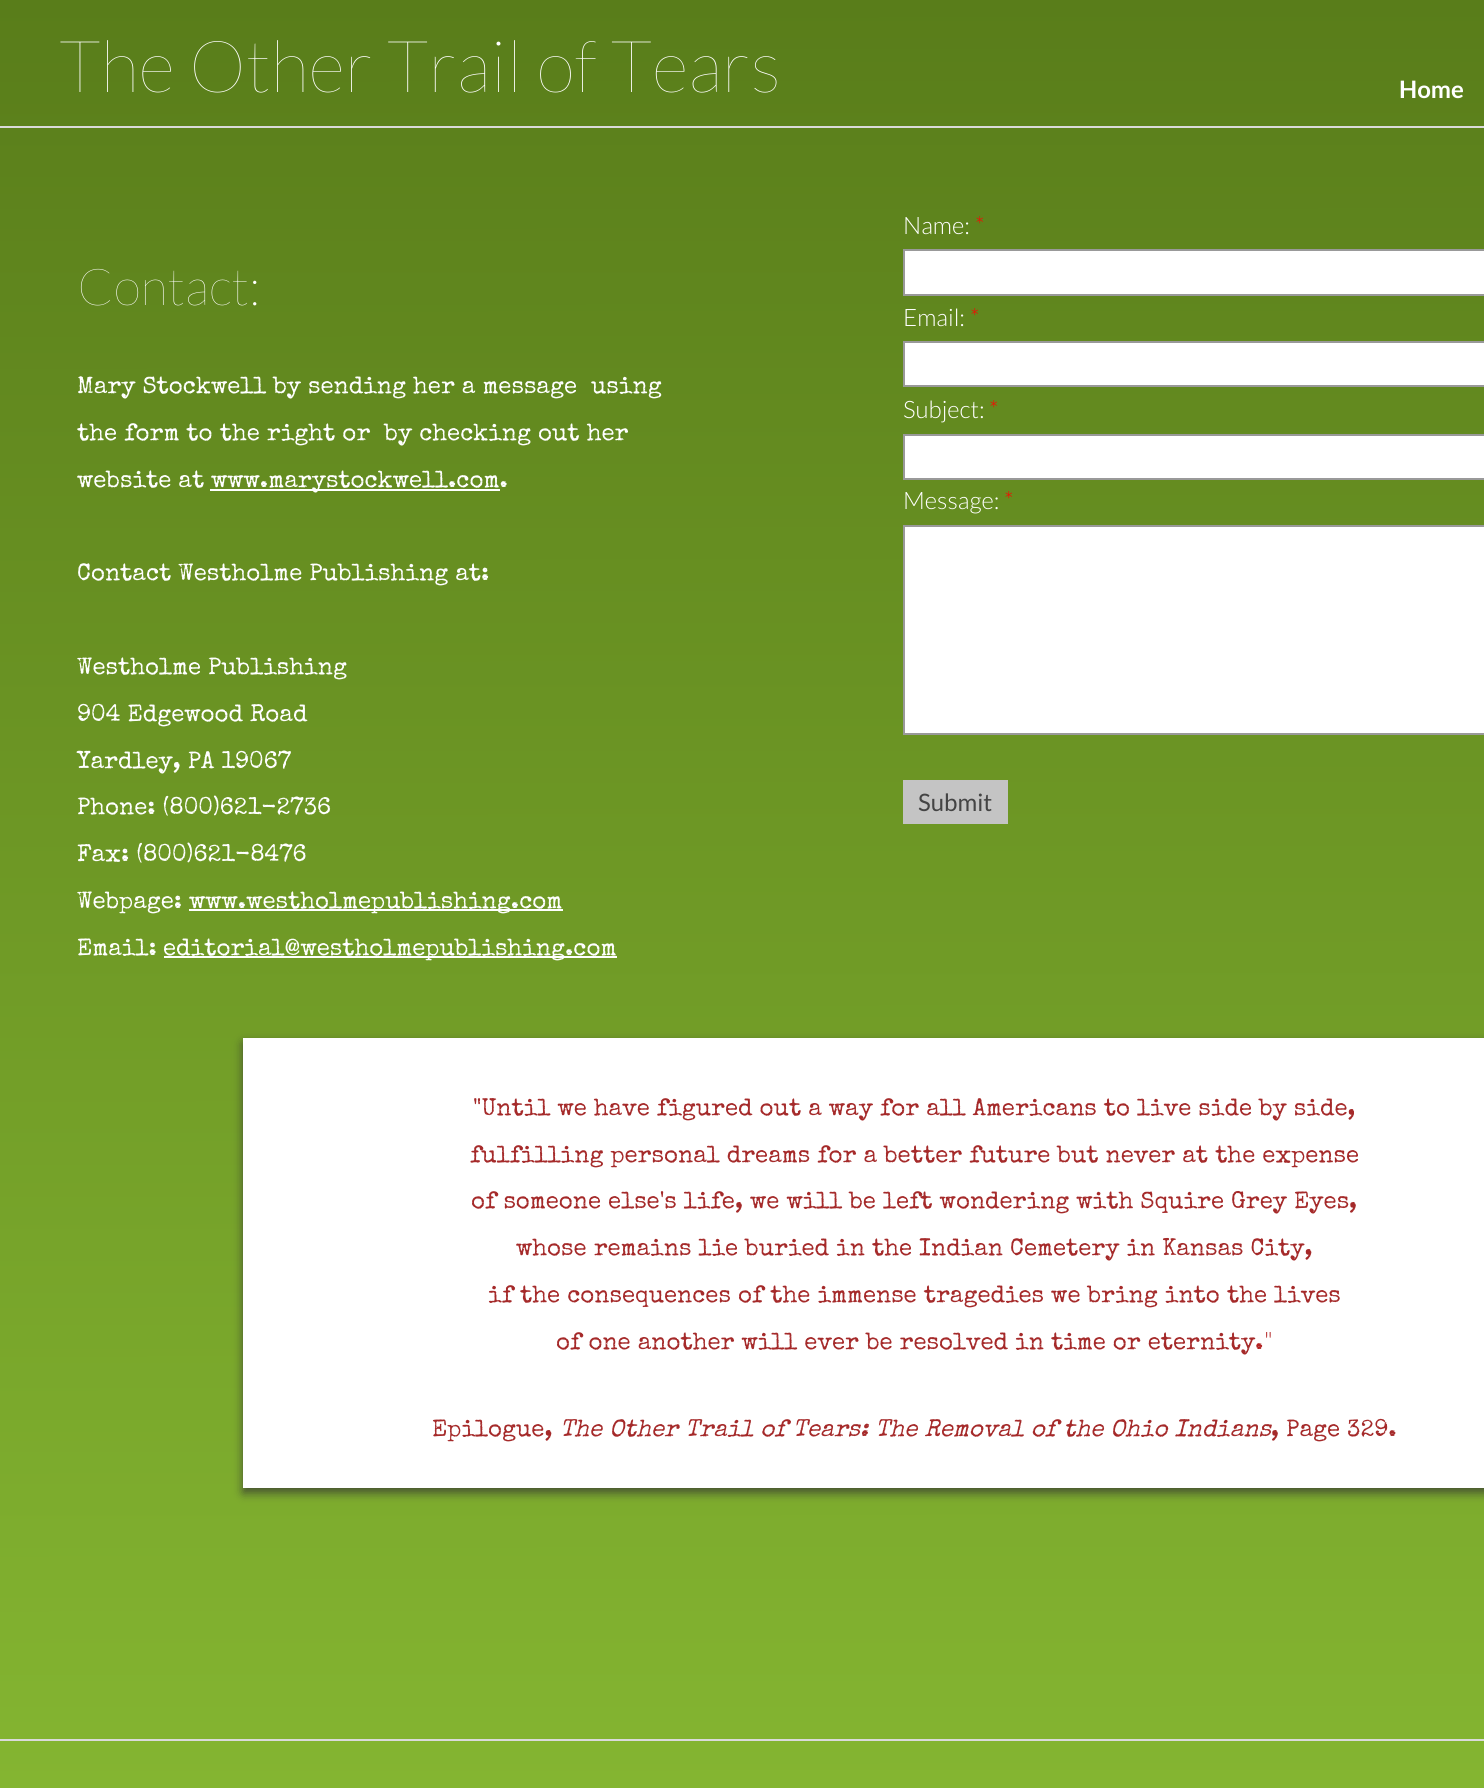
import math
import cairocffi as cairo

surface = cairo.ImageSurface(cairo.FORMAT_RGB24, 1484, 1788)
ctx = cairo.Context(surface)
options = cairo.FontOptions()
options.set_hint_metrics(cairo.HINT_METRICS_OFF)
options.set_hint_style(cairo.HINT_STYLE_NONE)
ctx.set_font_options(options)
ctx.set_miter_limit(4)


def rgb(r, g, b):
    ctx.set_source_rgb(r / 255, g / 255, b / 255)


def face(family, size, italic, bold):
    ctx.select_font_face(family, cairo.FONT_SLANT_ITALIC if italic else cairo.FONT_SLANT_NORMAL, cairo.FONT_WEIGHT_BOLD if bold else cairo.FONT_WEIGHT_NORMAL)
    ctx.set_font_size(size)


def label(x, y, s):
    ctx.move_to(x, y)
    ctx.show_text(s)


def rect(x, y, w, h):
    ctx.rectangle(x, y, w, h)
    ctx.fill()


def rrect(x, y, w, h, r):
    ctx.new_sub_path()
    for i, (u, v) in enumerate([(x + w - r, y + h - r), (x + r, y + h - r), (x + r, y + r), (x + w - r, y + r)]):
        ctx.arc(u, v, r, i * math.pi / 2, (i + 1) * math.pi / 2)
    ctx.close_path()


def soft_shadow(x, y, w, h, r, blur, alpha):
    ctx.push_group_with_content(cairo.CONTENT_ALPHA)
    ctx.set_operator(cairo.OPERATOR_SOURCE)
    for i in range(15, -16, -2):
        e = blur * i / 6
        if min(w, h) + 2 * e > 0:
            ctx.set_source_rgba(0, 0, 0, alpha * math.erfc((i - 1) / 8.5) / 2)
            rrect(x - e, y - e, w + 2 * e, h + 2 * e, max(0, min(r + e + blur * .6, min(w, h) / 2 + e)))
            ctx.fill()
    ctx.mask(ctx.pop_group())


rgb(255, 255, 255)
ctx.paint()
gradient = cairo.LinearGradient(742, 0, 743, 1788)
gradient.add_color_stop_rgba(0, 0.349, 0.49, 0.102, 1)
gradient.add_color_stop_rgba(1, 0.518, 0.71, 0.192, 1)
ctx.set_source(gradient)
rect(0, 0, 1484, 1788)
face('Lato Thin', 72, 0, 0)
rgb(255, 255, 255)
label(59, 92, 'The Other Trail of Tears')
face('Lato', 24, 0, 1)
label(1399, 98, 'Home')
rgb(218, 218, 218)
rect(0, 126, 1484, 2)
face('Lato Thin', 51, 0, 0)
rgb(255, 255, 255)
label(77, 305, 'Contact:')
face('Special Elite', 24, 0, 0)
label(77, 393, 'Mary Stockwell by sending her a message  using')
label(77, 440, 'the form to the right or  by checking out her')
label(77, 487, 'website at')
rect(210, 489, 290, 2)
label(211, 487, 'www.marystockwell.com.')
label(77, 580, 'Contact Westholme Publishing at:')
label(77, 674, 'Westholme Publishing')
label(77, 721, '904 Edgewood Road')
label(77, 768, 'Yardley, PA 19067')
label(77, 814, 'Phone: (800)621-2736')
label(77, 861, 'Fax: (800)621-8476')
label(77, 908, 'Webpage:')
rect(189, 909, 374, 2)
label(189, 908, 'www.westholmepublishing.com')
label(77, 955, 'Email:')
rect(164, 956, 453, 2)
label(163, 955, 'editorial@westholmepublishing.com')
face('Lato Light', 24, 0, 0)
label(903, 234, 'Name:')
rgb(255, 0, 0)
label(975, 234, '*')
rgb(255, 255, 255)
ctx.rectangle(904, 250, 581, 45)
ctx.fill_preserve()
rgb(153, 153, 153)
ctx.stroke()
rgb(255, 255, 255)
label(903, 326, 'Email:')
rgb(255, 0, 0)
label(970, 326, '*')
rgb(255, 255, 255)
ctx.rectangle(904, 342, 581, 44)
ctx.fill_preserve()
rgb(153, 153, 153)
ctx.stroke()
rgb(255, 255, 255)
label(903, 418, 'Subject:')
rgb(255, 0, 0)
label(989, 418, '*')
rgb(255, 255, 255)
ctx.rectangle(904, 435, 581, 44)
ctx.fill_preserve()
rgb(153, 153, 153)
ctx.stroke()
rgb(255, 255, 255)
label(903, 509, 'Message:')
rgb(255, 0, 0)
label(1004, 509, '*')
rgb(255, 255, 255)
ctx.rectangle(904, 526, 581, 208)
ctx.fill_preserve()
rgb(153, 153, 153)
ctx.stroke()
rgb(196, 196, 196)
rect(903, 780, 105, 44)
face('Lato', 24, 0, 0)
rgb(68, 68, 68)
label(918, 811, 'Submit')
rgb(50, 50, 50)
soft_shadow(243, 1043, 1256, 450, 0, 5, 0.75)
rgb(255, 255, 255)
rect(243, 1038, 1241, 450)
face('Special Elite', 24, 0, 0)
rgb(165, 42, 42)
label(473, 1115, '"Until we have figured out a way for all Americans to live side by side,')
label(470, 1162, 'fulfilling personal dreams for a better future but never at the expense')
label(471, 1208, 'of someone else\'s life, we will be left wondering with Squire Grey Eyes,')
label(516, 1255, 'whose remains lie buried in the Indian Cemetery in Kansas City,')
label(488, 1302, 'if the consequences of the immense tragedies we bring into the lives')
label(556, 1349, 'of one another will ever be resolved in time or eternity')
face('Lato Light', 24, 0, 0)
rgb(178, 34, 34)
label(1264, 1349, '"')
face('Special Elite', 24, 0, 0)
label(1255, 1349, '.')
rgb(165, 42, 42)
label(432, 1436, 'Epilogue,')
face('Special Elite', 24, 1, 0)
label(560, 1436, 'The Other Trail of Tears: The Removal of the Ohio Indians')
face('Special Elite', 24, 0, 0)
label(1271, 1436, ', Page 329.')
rgb(218, 218, 218)
rect(0, 1739, 1484, 2)
surface.write_to_png('render.png')
